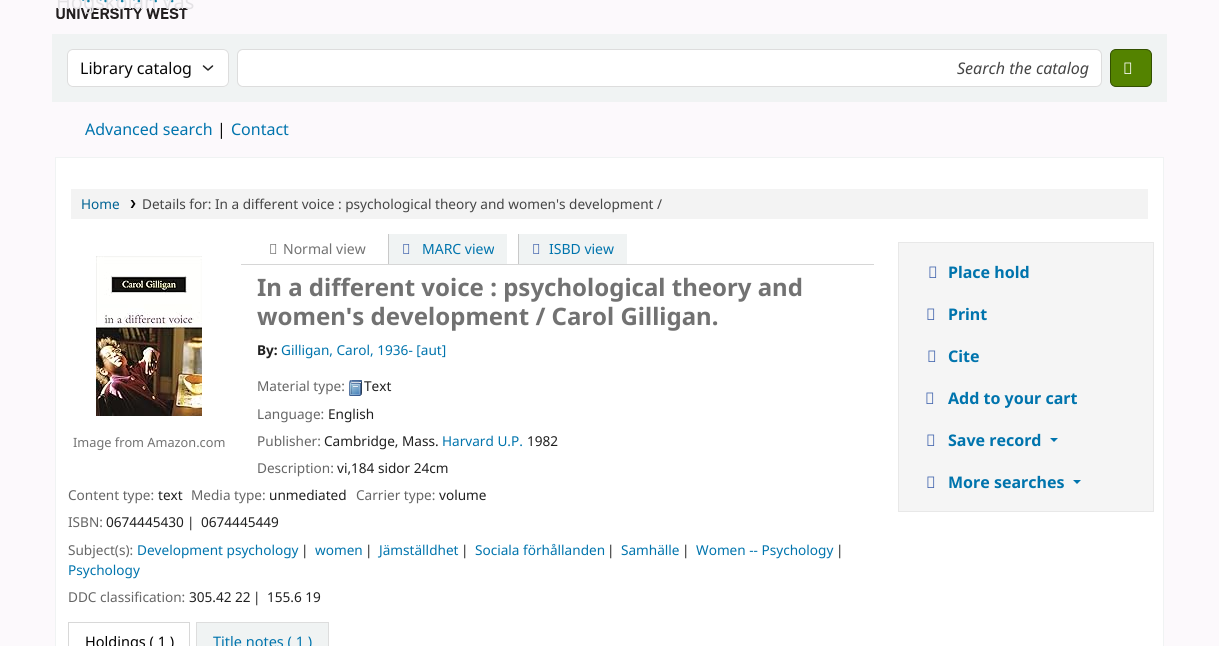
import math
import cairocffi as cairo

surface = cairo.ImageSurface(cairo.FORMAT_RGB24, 1219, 646)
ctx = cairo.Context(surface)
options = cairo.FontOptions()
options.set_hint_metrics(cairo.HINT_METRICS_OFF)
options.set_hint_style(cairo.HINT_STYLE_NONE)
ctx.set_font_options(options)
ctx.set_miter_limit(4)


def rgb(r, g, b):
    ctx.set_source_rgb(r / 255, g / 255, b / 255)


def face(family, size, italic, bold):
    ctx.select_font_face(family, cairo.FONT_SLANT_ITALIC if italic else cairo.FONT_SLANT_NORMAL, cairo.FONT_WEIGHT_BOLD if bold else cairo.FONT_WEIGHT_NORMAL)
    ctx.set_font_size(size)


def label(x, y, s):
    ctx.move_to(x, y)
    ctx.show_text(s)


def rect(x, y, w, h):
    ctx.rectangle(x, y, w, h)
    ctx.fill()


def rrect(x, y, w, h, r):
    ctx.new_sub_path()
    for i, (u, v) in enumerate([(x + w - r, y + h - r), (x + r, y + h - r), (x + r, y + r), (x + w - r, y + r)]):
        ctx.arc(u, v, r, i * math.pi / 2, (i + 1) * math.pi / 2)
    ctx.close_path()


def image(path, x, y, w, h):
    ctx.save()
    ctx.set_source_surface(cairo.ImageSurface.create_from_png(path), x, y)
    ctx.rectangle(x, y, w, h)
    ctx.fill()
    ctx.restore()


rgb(252, 249, 252)
ctx.paint()
image('image0.png', 56, 0, 132, 19)
face('Noto Sans', 20, 0, 0)
rgb(228, 226, 229)
label(56, 9, 'Högskolan Väs')
rgb(240, 243, 243)
rect(52, 34, 1115, 68)
rgb(255, 255, 255)
rrect(67, 49, 162, 38, 6)
ctx.fill()
ctx.new_path()
ctx.move_to(203.5, 66)
ctx.line_to(208, 70)
ctx.line_to(212.5, 66)
rgb(37, 37, 37)
ctx.set_line_width(1.5)
ctx.set_line_cap(cairo.LINE_CAP_ROUND)
ctx.set_line_join(cairo.LINE_JOIN_ROUND)
ctx.stroke()
rrect(67.5, 49.5, 161, 37, 5.5)
rgb(221, 221, 221)
ctx.set_line_width(1)
ctx.set_line_cap(cairo.LINE_CAP_BUTT)
ctx.set_line_join(cairo.LINE_JOIN_MITER)
ctx.stroke()
face('Noto Sans', 16, 0, 0)
rgb(7, 7, 7)
label(80, 74, 'Library catalog')
rgb(255, 255, 255)
rrect(237.5, 49.5, 864, 37, 5.5)
ctx.fill_preserve()
rgb(221, 221, 221)
ctx.stroke()
face('Noto Sans', 16, 1, 0)
rgb(69, 69, 69)
label(957, 74, 'Search the catalog')
rgb(84, 131, 0)
rrect(1110.5, 49.5, 41, 37, 5.5)
ctx.fill_preserve()
rgb(51, 80, 0)
ctx.stroke()
image('image1.png', 1124, 62, 8, 12)
face('Noto Sans', 16, 0, 0)
rgb(0, 116, 173)
label(85, 135, 'Advanced search')
rgb(7, 7, 7)
label(217, 135, '|')
rgb(0, 116, 173)
label(231, 135, 'Contact')
rgb(255, 255, 255)
ctx.rectangle(55.5, 157.5, 1108, 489)
ctx.fill_preserve()
rgb(240, 243, 243)
ctx.stroke()
rgb(243, 243, 243)
rect(71, 189, 1077, 30)
face('Noto Sans', 13.6, 0, 0)
rgb(0, 99, 148)
label(81, 209, 'Home')
image('image2.png', 130, 200, 6, 8)
rgb(69, 69, 69)
label(142, 209, 'Details for: In a different voice : psychological theory and women\'s development /')
rgb(214, 214, 214)
rect(241, 264, 633, 1)
image('image3.png', 270, 244, 7, 10)
face('Noto Sans', 14, 0, 0)
rgb(114, 114, 114)
label(283, 254, 'Normal view')
rgb(240, 243, 243)
rect(389, 234, 118, 30)
rgb(201, 201, 201)
rect(388, 234, 1, 30)
image('image4.png', 403, 244, 7, 10)
rgb(0, 116, 173)
label(422, 254, 'MARC view')
rgb(240, 243, 243)
rect(519, 234, 108, 30)
rgb(201, 201, 201)
rect(518, 234, 1, 30)
image('image4.png', 533, 244, 7, 10)
rgb(0, 116, 173)
label(549, 254, 'ISBD view')
face('Noto Sans', 24, 0, 1)
rgb(114, 114, 114)
label(257, 296, 'In a different voice : psychological theory and')
label(257, 325, 'women\'s development / Carol Gilligan.')
face('Noto Sans', 13.6, 0, 1)
rgb(32, 32, 32)
label(257, 355, 'By:')
face('Noto Sans', 13.6, 0, 0)
rgb(0, 116, 173)
label(281, 355, 'Gilligan, Carol, 1936- [aut]')
rgb(102, 102, 102)
label(257, 391, 'Material type:')
image('image5.png', 349, 380, 13, 16)
rgb(32, 32, 32)
label(364, 391, 'Text')
rgb(102, 102, 102)
label(257, 419, 'Language:')
rgb(32, 32, 32)
label(328, 419, 'English')
rgb(102, 102, 102)
label(257, 446, 'Publisher:')
rgb(32, 32, 32)
label(324, 446, 'Cambridge, Mass.')
rgb(0, 116, 173)
label(442, 446, 'Harvard U.P.')
rgb(32, 32, 32)
label(527, 446, '1982')
rgb(102, 102, 102)
label(257, 473, 'Description:')
rgb(32, 32, 32)
label(337, 473, 'vi,184 sidor 24cm')
rgb(102, 102, 102)
label(68, 500, 'Content type:')
rgb(32, 32, 32)
label(158, 500, 'text')
rgb(102, 102, 102)
label(191, 500, 'Media type:')
rgb(32, 32, 32)
label(269, 500, 'unmediated')
rgb(102, 102, 102)
label(356, 500, 'Carrier type:')
rgb(32, 32, 32)
label(439, 500, 'volume')
rgb(102, 102, 102)
label(68, 527, 'ISBN:')
rgb(32, 32, 32)
label(106, 527, '0674445430')
label(187, 527, '|')
label(201, 527, '0674445449')
rgb(0, 116, 173)
label(137, 555, 'Development psychology')
rgb(32, 32, 32)
label(301, 555, '|')
rgb(0, 116, 173)
label(315, 555, 'women')
rgb(32, 32, 32)
label(365, 555, '|')
rgb(0, 116, 173)
label(379, 555, 'Jämställdhet')
rgb(32, 32, 32)
label(461, 555, '|')
rgb(0, 116, 173)
label(475, 555, 'Sociala förhållanden')
rgb(32, 32, 32)
label(607, 555, '|')
rgb(0, 116, 173)
label(621, 555, 'Samhälle')
rgb(32, 32, 32)
label(682, 555, '|')
rgb(0, 116, 173)
label(696, 555, 'Women -- Psychology')
rgb(32, 32, 32)
label(836, 555, '|')
rgb(0, 116, 173)
label(68, 575, 'Psychology')
rgb(102, 102, 102)
label(68, 555, 'Subject(s):')
label(68, 602, 'DDC classification:')
rgb(32, 32, 32)
label(189, 602, '305.42 22')
label(253, 602, '|')
label(267, 602, '155.6 19')
image('image6.png', 96, 256, 106, 160)
face('Noto Sans', 12.75, 0, 0)
rgb(114, 114, 114)
label(73, 447, 'Image from Amazon.com')
rgb(216, 216, 216)
rect(68, 622, 122, 1)
ctx.new_path()
ctx.move_to(190, 622)
ctx.line_to(190, 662)
ctx.line_to(189, 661)
ctx.line_to(189, 623)
ctx.close_path()
ctx.fill()
ctx.new_path()
ctx.move_to(68, 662)
ctx.line_to(68, 622)
ctx.line_to(69, 623)
ctx.line_to(69, 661)
ctx.close_path()
ctx.fill()
face('Noto Sans', 14.5, 0, 0)
rgb(0, 0, 0)
label(85, 647, 'Holdings ( 1 )')
rgb(240, 243, 243)
ctx.rectangle(196.5, 622.5, 132, 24)
ctx.fill_preserve()
rgb(221, 221, 221)
ctx.stroke()
rgb(0, 116, 173)
label(213, 647, 'Title notes ( 1 )')
rgb(245, 245, 245)
ctx.rectangle(898.5, 242.5, 255, 269)
ctx.fill_preserve()
rgb(232, 232, 232)
ctx.stroke()
image('image7.png', 929, 266, 8, 12)
face('Noto Sans', 16, 0, 1)
rgb(0, 116, 173)
label(948, 278, 'Place hold')
image('image7.png', 927, 308, 8, 12)
label(948, 320, 'Print')
image('image7.png', 928, 350, 8, 12)
label(948, 362, 'Cite')
image('image7.png', 926, 392, 8, 12)
label(948, 404, 'Add to your cart')
image('image7.png', 927, 434, 8, 12)
label(948, 446, 'Save record')
ctx.new_path()
ctx.move_to(1050, 438)
ctx.line_to(1058, 438)
ctx.line_to(1054, 442)
ctx.close_path()
ctx.fill()
image('image7.png', 927, 476, 8, 12)
label(948, 488, 'More searches')
ctx.new_path()
ctx.move_to(1073, 480)
ctx.line_to(1081, 480)
ctx.line_to(1077, 484)
ctx.close_path()
ctx.fill()
surface.write_to_png('render.png')
